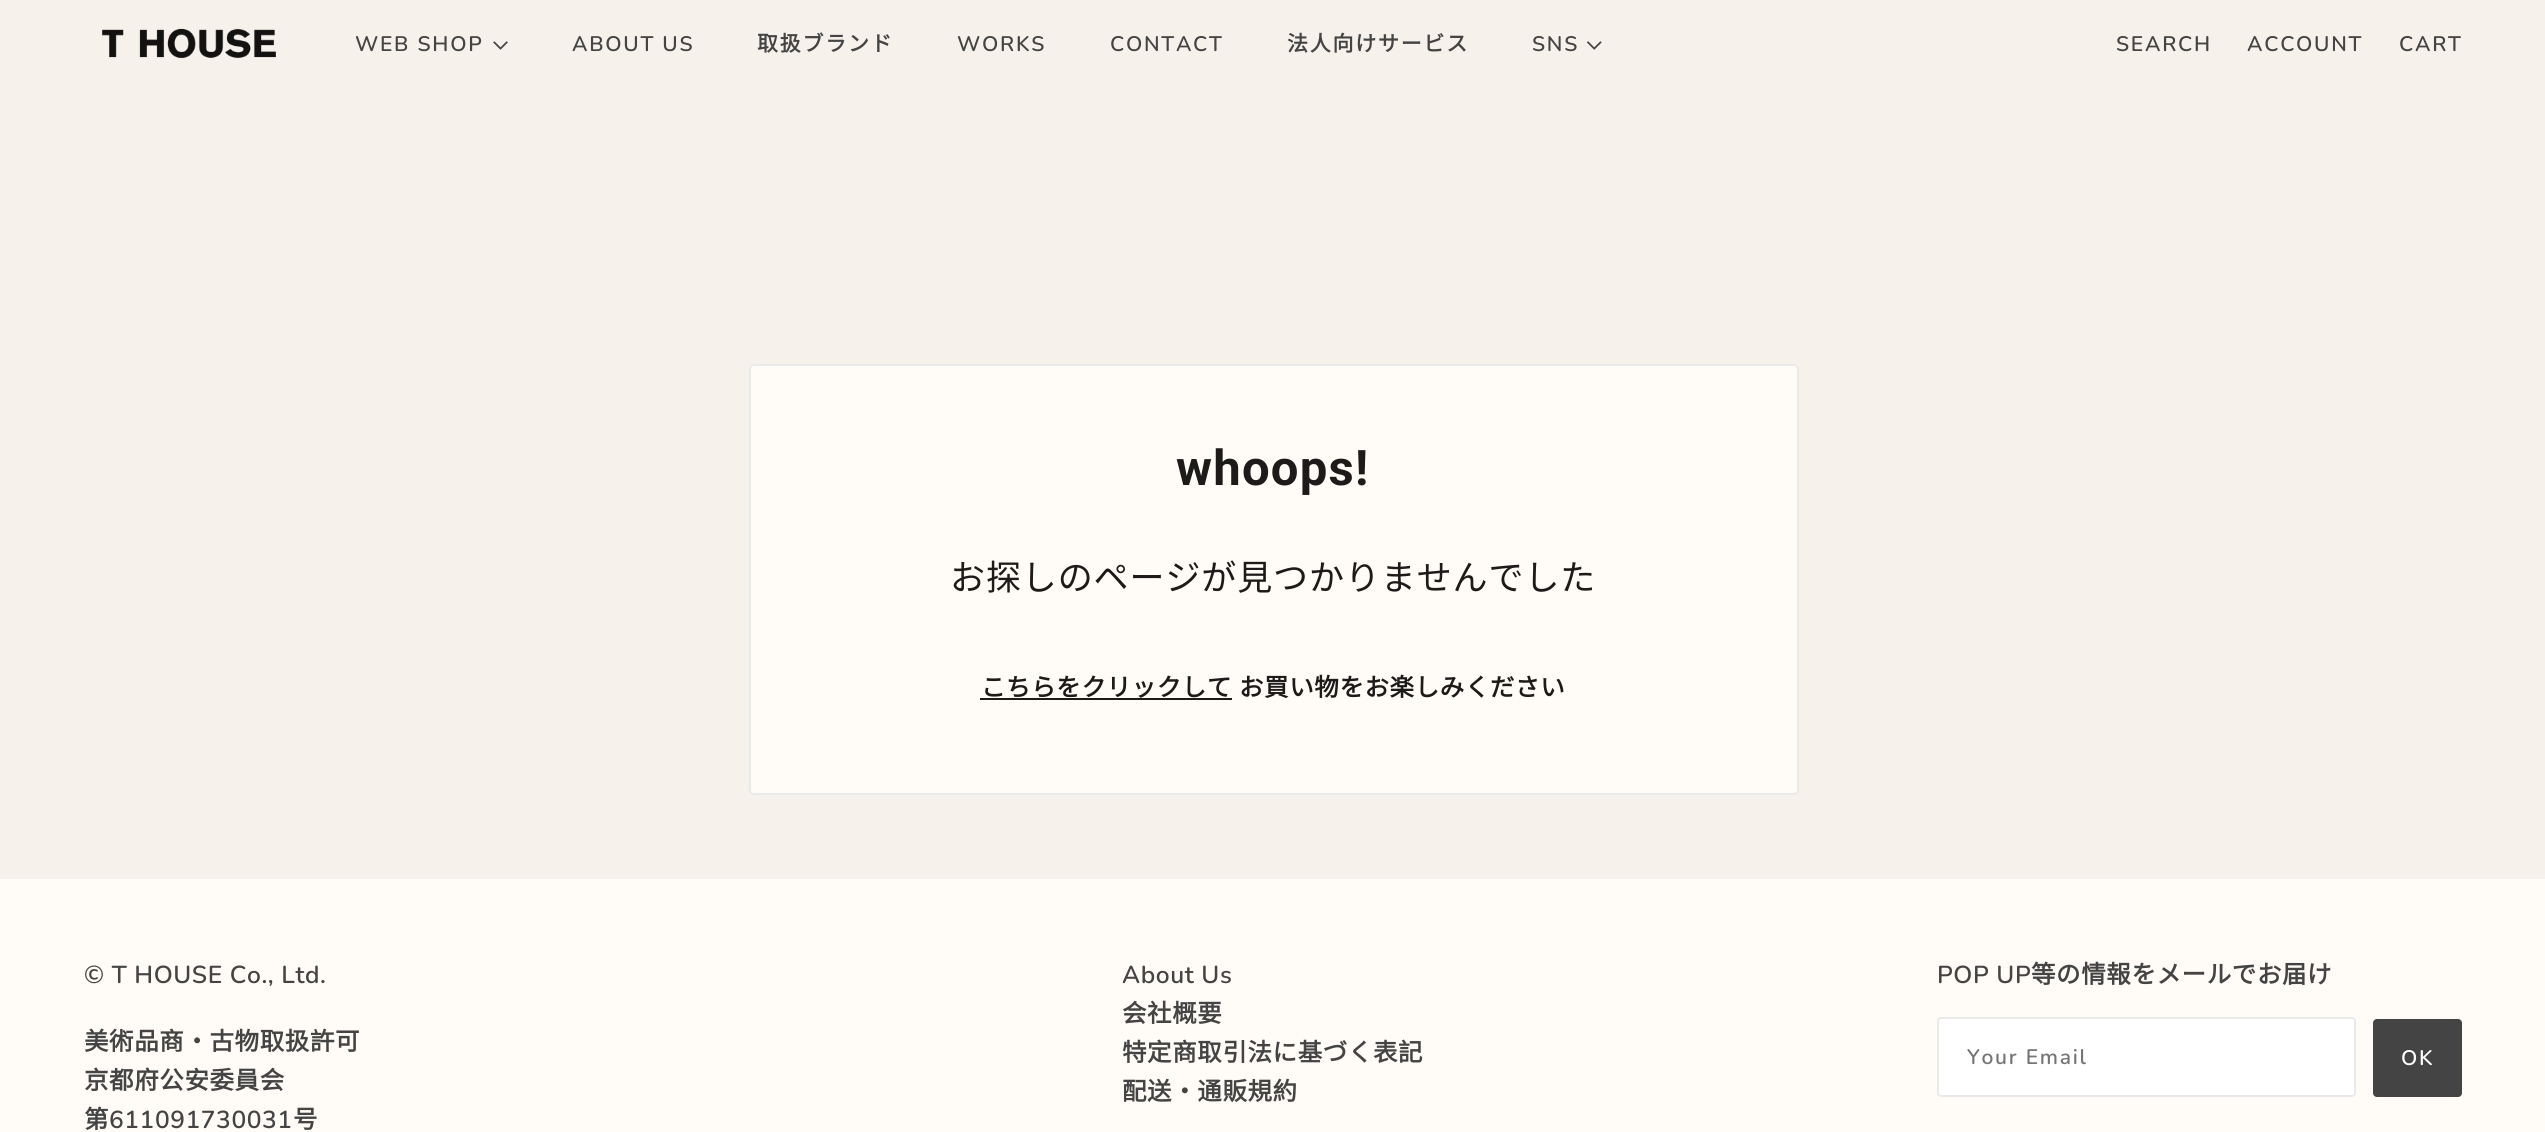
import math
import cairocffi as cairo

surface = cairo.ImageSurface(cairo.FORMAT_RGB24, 2545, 1132)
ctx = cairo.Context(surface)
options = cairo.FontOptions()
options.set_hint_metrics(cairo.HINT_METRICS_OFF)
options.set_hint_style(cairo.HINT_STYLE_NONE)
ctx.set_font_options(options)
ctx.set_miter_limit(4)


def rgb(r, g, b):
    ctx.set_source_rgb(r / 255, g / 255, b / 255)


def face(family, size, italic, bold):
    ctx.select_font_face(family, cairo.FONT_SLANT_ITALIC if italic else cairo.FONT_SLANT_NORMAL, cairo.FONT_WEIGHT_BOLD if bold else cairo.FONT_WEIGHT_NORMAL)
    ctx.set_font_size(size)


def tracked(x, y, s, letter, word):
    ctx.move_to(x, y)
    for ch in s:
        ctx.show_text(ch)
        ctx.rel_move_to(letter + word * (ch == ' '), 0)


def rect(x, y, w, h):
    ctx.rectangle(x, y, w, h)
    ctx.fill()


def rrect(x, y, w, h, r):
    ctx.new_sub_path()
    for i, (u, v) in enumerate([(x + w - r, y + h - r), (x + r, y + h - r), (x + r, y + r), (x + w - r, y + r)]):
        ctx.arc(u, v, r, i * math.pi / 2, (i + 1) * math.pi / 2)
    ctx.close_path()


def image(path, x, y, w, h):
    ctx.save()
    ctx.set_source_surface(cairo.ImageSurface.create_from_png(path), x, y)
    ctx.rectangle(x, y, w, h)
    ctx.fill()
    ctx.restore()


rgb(246, 241, 235)
ctx.paint()
image('image0.png', 102, 28, 174, 31)
face('Nunito SemiBold', 21, 0, 0)
rgb(68, 68, 68)
tracked(355, 51, 'WEB SHOP', 1.75, 0)
image('image1.png', 493, 41, 15, 9)
tracked(572, 51, 'ABOUT US', 1.75, 0)
face('Noto Sans CJK SC', 21, 0, 1)
tracked(757, 51, '取扱ブランド', 1.75, 0)
face('Nunito SemiBold', 21, 0, 0)
tracked(957, 51, 'WORKS', 1.75, 0)
tracked(1110, 51, 'CONTACT', 1.75, 0)
face('Noto Sans CJK SC', 21, 0, 1)
tracked(1287, 51, '法人向けサービス', 1.75, 0)
face('Nunito SemiBold', 21, 0, 0)
tracked(1532, 51, 'SNS', 1.75, 0)
image('image2.png', 1586, 41, 16, 9)
tracked(2116, 51, 'SEARCH', 1.75, 0)
tracked(2247, 51, 'ACCOUNT', 1.75, 0)
tracked(2399, 51, 'CART', 1.75, 0)
rgb(255, 252, 247)
rrect(750, 365, 1048, 429, 4)
ctx.fill_preserve()
rgb(234, 234, 234)
ctx.stroke()
face('Roboto', 49, 0, 1)
rgb(28, 27, 26)
tracked(1176, 485, 'whoops!', 1.25, 0)
face('Noto Sans CJK SC', 35, 0, 0)
tracked(950, 590, 'お探しのページが見つかりませんでした', 0.9, 0)
face('Noto Sans CJK SC', 24.5, 0, 1)
tracked(981, 696, 'こちらをクリックして', 0.6, 0)
rect(980, 698, 252, 2)
tracked(1239, 696, 'お買い物をお楽しみください', 0.6, 0)
rgb(255, 252, 247)
rect(0, 879, 2545, 253)
face('Nunito SemiBold', 24.5, 0, 0)
rgb(68, 68, 68)
tracked(84, 983, '© T HOUSE Co., Ltd.', 0.6, 0)
face('Noto Sans CJK SC', 24.5, 0, 1)
tracked(84, 1050, '美術品商・古物取扱許可', 0.6, 0)
tracked(84, 1089, '京都府公安委員会', 0.6, 0)
tracked(84, 1128, '第', 0.6, 0)
face('Nunito SemiBold', 24.5, 0, 0)
tracked(109, 1128, '611091730031', 0.6, 0)
face('Noto Sans CJK SC', 24.5, 0, 1)
tracked(293, 1128, '号', 0.6, 0)
face('Nunito SemiBold', 24.5, 0, 0)
tracked(1122, 983, 'About Us', 0.6, 0)
face('Noto Sans CJK SC', 24.5, 0, 1)
tracked(1122, 1022, '会社概要', 0.6, 0)
tracked(1122, 1061, '特定商取引法に基づく表記', 0.6, 0)
tracked(1122, 1100, '配送・通販規約', 0.6, 0)
face('Nunito SemiBold', 24.5, 0, 0)
tracked(1937, 983, 'POP UP', 0.6, 0)
face('Noto Sans CJK SC', 24.5, 0, 1)
tracked(2031, 983, '等の情報をメールでお届け', 0.6, 0)
rgb(255, 255, 255)
rrect(1938, 1018, 417, 78, 3)
ctx.fill_preserve()
rgb(234, 234, 234)
ctx.stroke()
face('Nunito SemiBold', 21, 0, 0)
rgb(117, 117, 117)
tracked(1967, 1064, 'Your Email', 1.75, 0)
rgb(68, 68, 68)
rrect(2373, 1019, 89, 78, 4)
ctx.fill()
rgb(255, 255, 255)
tracked(2401, 1065, 'OK', 1.75, 0)
surface.write_to_png('render.png')
